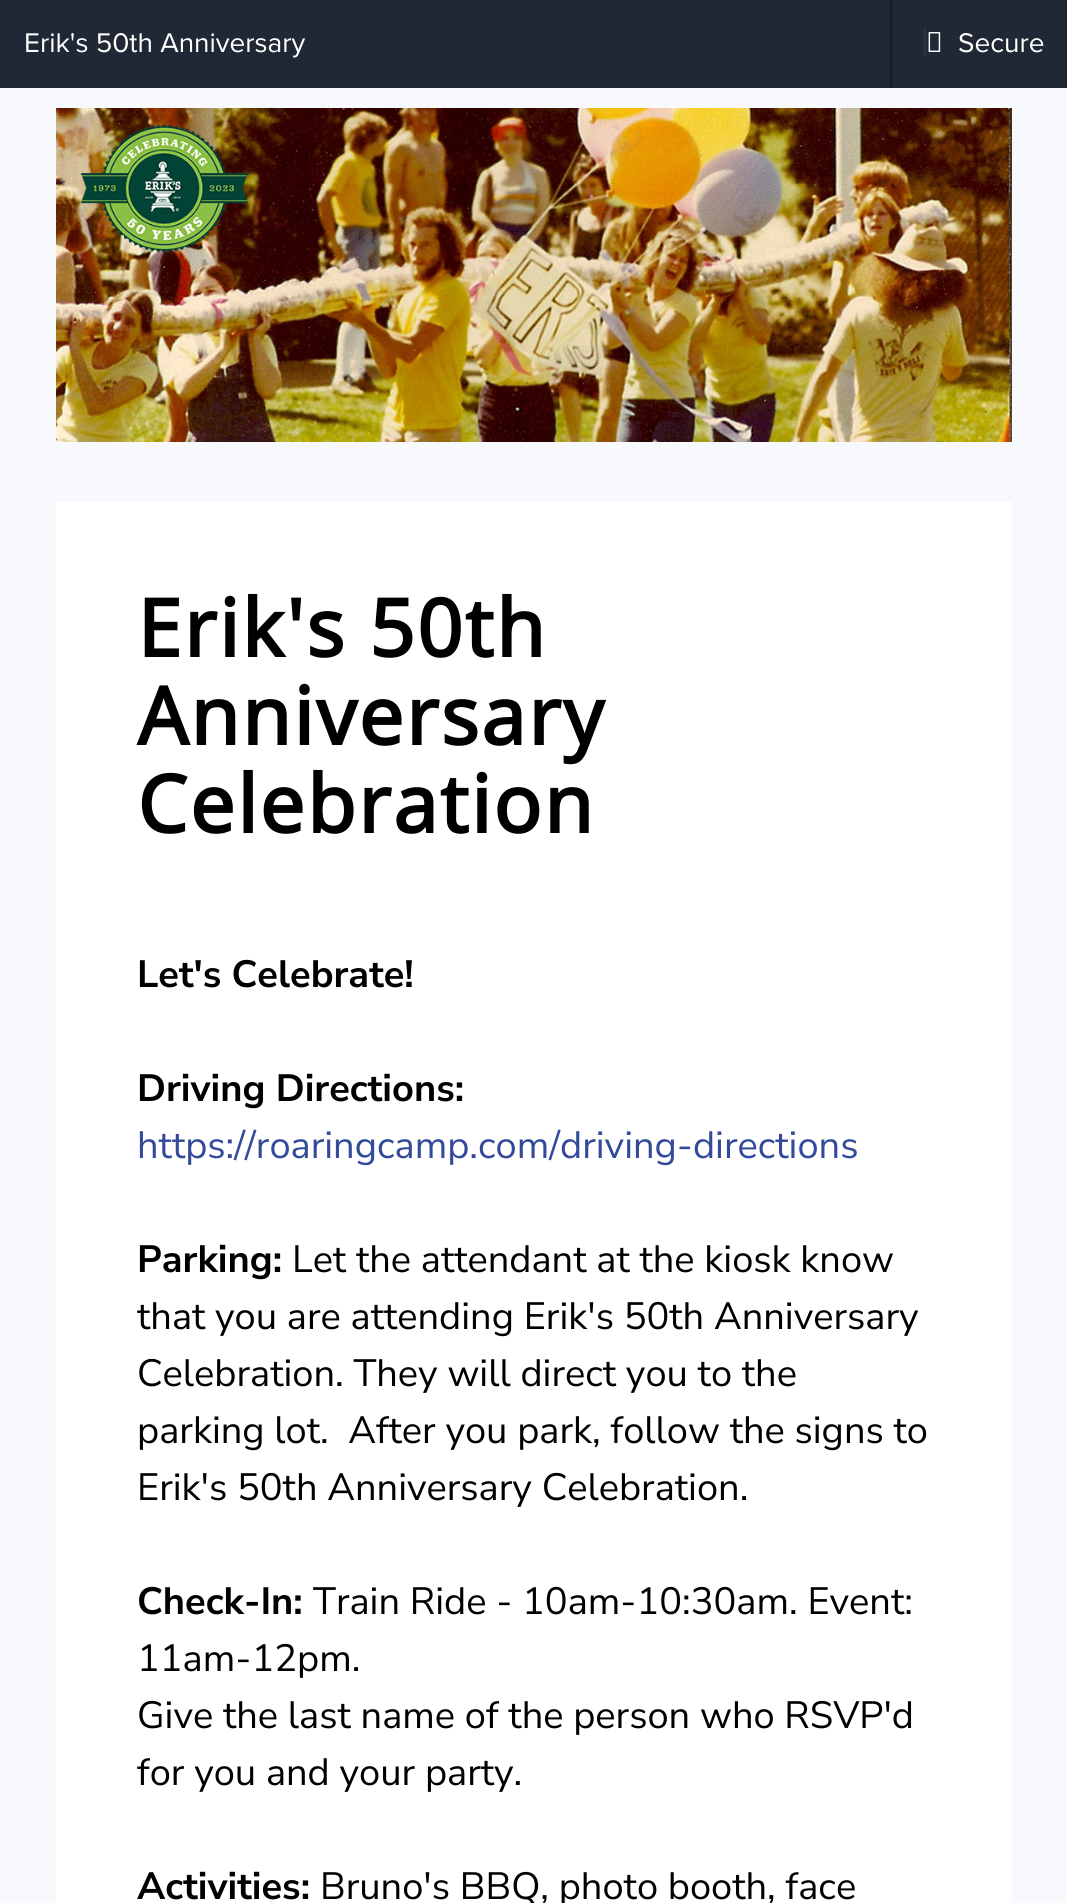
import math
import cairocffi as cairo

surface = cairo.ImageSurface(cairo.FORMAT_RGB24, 1067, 1903)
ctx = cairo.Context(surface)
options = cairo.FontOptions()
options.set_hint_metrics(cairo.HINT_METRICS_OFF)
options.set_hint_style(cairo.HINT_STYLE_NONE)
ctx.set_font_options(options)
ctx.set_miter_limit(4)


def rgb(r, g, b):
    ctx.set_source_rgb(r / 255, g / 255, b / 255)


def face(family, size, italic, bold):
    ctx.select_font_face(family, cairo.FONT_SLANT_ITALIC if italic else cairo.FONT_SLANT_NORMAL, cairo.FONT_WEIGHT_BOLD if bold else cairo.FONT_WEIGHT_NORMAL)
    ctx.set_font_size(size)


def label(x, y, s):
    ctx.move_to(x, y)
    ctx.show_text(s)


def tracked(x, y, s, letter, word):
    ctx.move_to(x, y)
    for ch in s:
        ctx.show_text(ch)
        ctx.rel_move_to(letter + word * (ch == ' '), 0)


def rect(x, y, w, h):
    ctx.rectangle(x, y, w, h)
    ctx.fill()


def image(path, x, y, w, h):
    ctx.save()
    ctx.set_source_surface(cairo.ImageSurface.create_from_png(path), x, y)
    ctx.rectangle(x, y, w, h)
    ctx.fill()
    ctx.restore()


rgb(248, 249, 252)
ctx.paint()
rgb(31, 40, 52)
rect(0, 0, 1067, 88)
face('Proxima Nova', 28, 0, 0)
rgb(255, 255, 255)
label(24, 52, 'Erik\'s 50th Anniversary')
rgb(22, 28, 36)
rect(890, 0, 2, 88)
rgb(42, 51, 62)
rect(924, 28, 2, 28)
image('image0.png', 928, 32, 13, 20)
rgb(255, 255, 255)
label(958, 52, 'Secure')
image('image1.png', 56, 108, 956, 334)
rect(56, 502, 956, 1401)
face('Noto Sans Samaritan', 80, 0, 1)
rgb(0, 0, 0)
tracked(137, 657, 'Erik\'s 50th', 2, 0)
tracked(137, 745, 'Anniversary', 2, 0)
tracked(137, 833, 'Celebration', 2, 0)
face('Nunito Sans', 38, 0, 1)
label(137, 987, 'Let\'s Celebrate!')
label(137, 1101, 'Driving Directions:')
face('Nunito Sans', 38, 0, 0)
rgb(51, 73, 153)
label(137, 1158, 'https://roaringcamp.com/driving-directions')
face('Nunito Sans', 38, 0, 1)
rgb(0, 0, 0)
label(137, 1272, 'Parking:')
face('Nunito Sans', 38, 0, 0)
label(292, 1272, 'Let the attendant at the kiosk know')
label(137, 1329, 'that you are attending Erik\'s 50th Anniversary')
label(137, 1386, 'Celebration. They will direct you to the')
label(137, 1443, 'parking lot.  After you park, follow the signs to')
label(137, 1500, 'Erik\'s 50th Anniversary Celebration.')
face('Nunito Sans', 38, 0, 1)
label(137, 1614, 'Check-In:')
face('Nunito Sans', 38, 0, 0)
label(313, 1614, 'Train Ride - 10am-10:30am. Event:')
label(137, 1671, '11am-12pm.')
label(137, 1728, 'Give the last name of the person who RSVP\'d')
label(137, 1785, 'for you and your party.')
face('Nunito Sans', 38, 0, 1)
label(137, 1899, 'Activities:')
face('Nunito Sans', 38, 0, 0)
label(320, 1899, 'Bruno\'s BBQ, photo booth, face')
surface.write_to_png('render.png')
